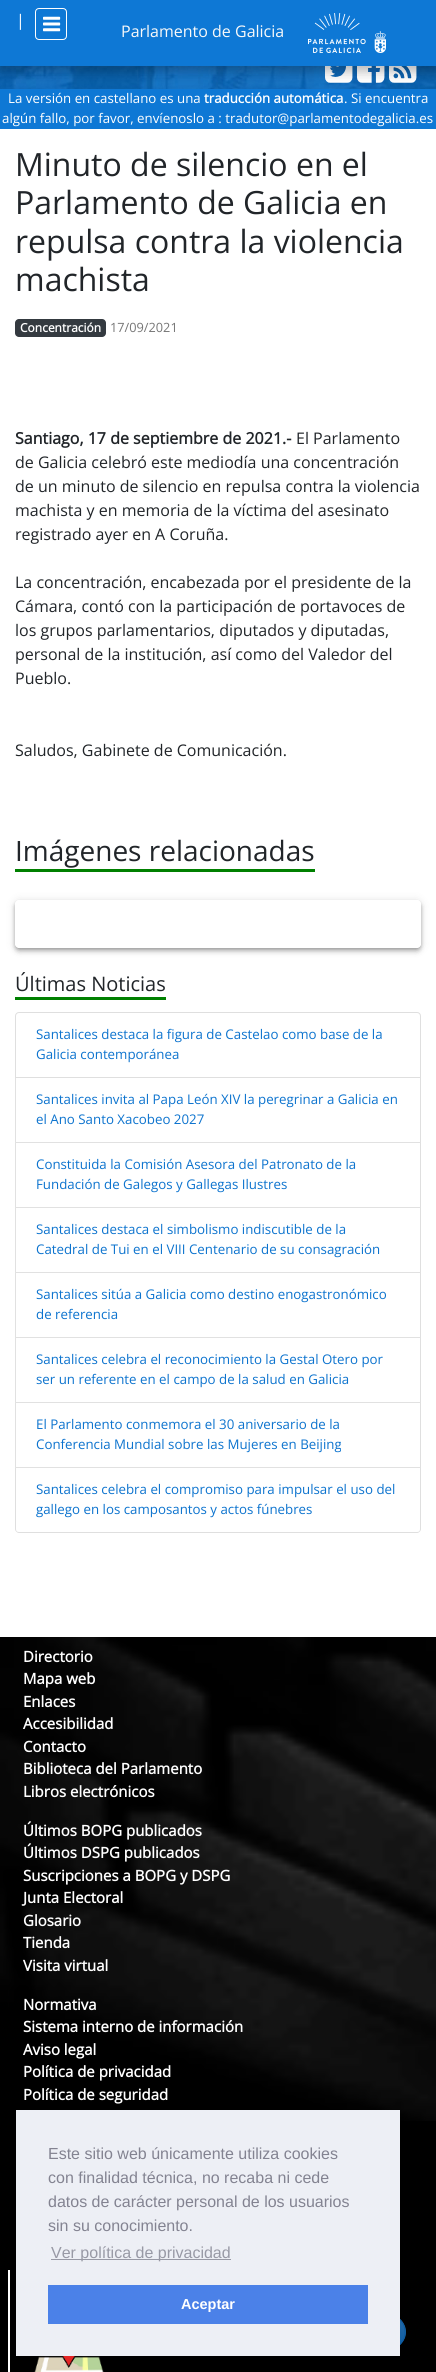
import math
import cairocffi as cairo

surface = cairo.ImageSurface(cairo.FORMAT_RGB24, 436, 2372)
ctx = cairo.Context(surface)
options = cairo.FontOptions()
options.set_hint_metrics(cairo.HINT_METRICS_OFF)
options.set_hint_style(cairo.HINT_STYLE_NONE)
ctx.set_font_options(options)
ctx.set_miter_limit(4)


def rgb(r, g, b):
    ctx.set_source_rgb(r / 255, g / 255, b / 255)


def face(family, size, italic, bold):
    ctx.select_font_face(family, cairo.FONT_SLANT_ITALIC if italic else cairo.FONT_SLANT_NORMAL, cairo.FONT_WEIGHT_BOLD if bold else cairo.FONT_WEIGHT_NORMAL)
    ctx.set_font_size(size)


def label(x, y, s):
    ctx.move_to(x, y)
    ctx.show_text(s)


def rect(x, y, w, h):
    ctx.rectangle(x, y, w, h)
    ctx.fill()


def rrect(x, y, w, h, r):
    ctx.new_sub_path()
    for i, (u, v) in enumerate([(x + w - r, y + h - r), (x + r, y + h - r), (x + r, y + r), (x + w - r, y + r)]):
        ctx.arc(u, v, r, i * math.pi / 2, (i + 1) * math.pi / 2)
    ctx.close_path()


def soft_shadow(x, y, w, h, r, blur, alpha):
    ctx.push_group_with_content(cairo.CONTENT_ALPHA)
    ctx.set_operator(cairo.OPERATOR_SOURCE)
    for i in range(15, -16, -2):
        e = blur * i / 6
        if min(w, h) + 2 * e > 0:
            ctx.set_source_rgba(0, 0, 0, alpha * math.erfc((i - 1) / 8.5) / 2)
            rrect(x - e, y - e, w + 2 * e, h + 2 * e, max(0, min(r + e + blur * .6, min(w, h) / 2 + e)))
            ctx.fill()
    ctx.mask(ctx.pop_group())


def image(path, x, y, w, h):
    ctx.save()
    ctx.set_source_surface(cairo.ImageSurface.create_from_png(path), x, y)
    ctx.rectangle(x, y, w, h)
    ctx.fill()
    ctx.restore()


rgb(255, 255, 255)
ctx.paint()
rgb(14, 120, 213)
rect(0, 89, 436, 40)
image('image2.png', 0, 66, 436, 23)
image('image3.png', 325, 66, 28, 17)
image('image4.png', 357, 66, 28, 17)
image('image5.png', 389, 66, 28, 17)
rgb(0, 0, 0)
soft_shadow(0, 4, 436, 66, 0, 7.5, 0.15)
soft_shadow(0, 5, 436, 66, 0, 5.5, 0.18)
rgb(14, 120, 213)
rect(0, 0, 436, 66)
face('Open Sans', 16, 0, 0)
rgb(255, 255, 255)
label(16, 26, '|')
rrect(35.5, 8.5, 31, 31, 3.5)
ctx.set_line_width(1)
ctx.stroke()
image('image0.png', 43, 16, 18, 16)
rgb(249, 249, 249)
label(121, 37, 'Parlamento de Galicia')
image('image1.png', 308, 13, 78, 40)
face('Open Sans', 13.3, 0, 0)
rgb(255, 255, 255)
label(8, 103, 'La versión en castellano es una')
face('Open Sans', 13.3, 0, 1)
label(204, 103, 'traducción automática')
face('Open Sans', 13.3, 0, 0)
label(344, 103, '. Si encuentra')
label(2, 123, 'algún fallo, por favor, envíenoslo a : tradutor@parlamentodegalicia.es')
face('Open Sans', 32, 0, 0)
rgb(33, 37, 41)
label(15, 176, 'Minuto de silencio en el')
label(15, 214, 'Parlamento de Galicia en')
label(15, 253, 'repulsa contra la violencia')
label(15, 291, 'machista')
rgb(52, 58, 64)
rrect(15, 319, 91, 18, 4)
ctx.fill()
face('Open Sans', 12, 0, 1)
rgb(255, 255, 255)
label(20, 332, 'Concentración')
face('Open Sans', 12.75, 0, 0)
rgb(118, 118, 118)
label(110, 332, '17/09/2021')
face('Open Sans', 16, 0, 1)
rgb(33, 37, 41)
label(15, 444, 'Santiago, 17 de septiembre de 2021.-')
face('Open Sans', 16, 0, 0)
label(296, 444, 'El Parlamento')
label(15, 468, 'de Galicia celebró este mediodía una concentración')
label(15, 492, 'de un minuto de silencio en repulsa contra la violencia')
label(15, 516, 'machista y en memoria de la víctima del asesinato')
label(15, 540, 'registrado ayer en A Coruña.')
label(15, 588, 'La concentración, encabezada por el presidente de la')
label(15, 612, 'Cámara, contó con la participación de portavoces de')
label(15, 636, 'los grupos parlamentarios, diputados y diputadas,')
label(15, 660, 'personal de la institución, así como del Valedor del')
label(15, 684, 'Pueblo.')
label(15, 756, 'Saludos, Gabinete de Comunicación.')
face('Open Sans', 28, 0, 0)
label(15, 861, 'Imágenes relacionadas')
rgb(0, 128, 0)
rect(15, 869, 300, 3)
ctx.save()
ctx.set_fill_rule(cairo.FILL_RULE_EVEN_ODD)
ctx.new_path()
ctx.move_to(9, 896)
ctx.line_to(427, 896)
ctx.line_to(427, 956)
ctx.line_to(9, 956)
ctx.close_path()
ctx.move_to(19, 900)
ctx.line_to(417, 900)
ctx.curve_to(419, 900, 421, 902, 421, 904)
ctx.line_to(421, 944)
ctx.curve_to(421, 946, 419, 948, 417, 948)
ctx.line_to(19, 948)
ctx.curve_to(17, 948, 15, 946, 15, 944)
ctx.line_to(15, 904)
ctx.curve_to(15, 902, 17, 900, 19, 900)
ctx.close_path()
ctx.clip()
rgb(0, 0, 0)
soft_shadow(16, 903, 404, 46, 3, 2, 0.3)
ctx.restore()
ctx.save()
ctx.set_fill_rule(cairo.FILL_RULE_EVEN_ODD)
ctx.new_path()
ctx.move_to(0, 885)
ctx.line_to(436, 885)
ctx.line_to(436, 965)
ctx.line_to(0, 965)
ctx.close_path()
ctx.move_to(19, 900)
ctx.line_to(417, 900)
ctx.curve_to(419, 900, 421, 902, 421, 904)
ctx.line_to(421, 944)
ctx.curve_to(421, 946, 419, 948, 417, 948)
ctx.line_to(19, 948)
ctx.curve_to(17, 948, 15, 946, 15, 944)
ctx.line_to(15, 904)
ctx.curve_to(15, 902, 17, 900, 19, 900)
ctx.close_path()
ctx.clip()
rgb(0, 0, 0)
soft_shadow(15, 901, 406, 48, 4, 5, 0.12)
ctx.restore()
ctx.save()
ctx.set_fill_rule(cairo.FILL_RULE_EVEN_ODD)
ctx.new_path()
ctx.move_to(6, 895)
ctx.line_to(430, 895)
ctx.line_to(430, 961)
ctx.line_to(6, 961)
ctx.close_path()
ctx.move_to(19, 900)
ctx.line_to(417, 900)
ctx.curve_to(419, 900, 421, 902, 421, 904)
ctx.line_to(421, 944)
ctx.curve_to(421, 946, 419, 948, 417, 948)
ctx.line_to(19, 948)
ctx.curve_to(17, 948, 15, 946, 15, 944)
ctx.line_to(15, 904)
ctx.curve_to(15, 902, 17, 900, 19, 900)
ctx.close_path()
ctx.clip()
rgb(0, 0, 0)
soft_shadow(15, 904, 406, 48, 4, 2.5, 0.14)
ctx.restore()
face('Open Sans', 20, 0, 0)
rgb(33, 37, 41)
label(15, 991, 'Últimas Noticias')
rgb(0, 128, 0)
rect(15, 997, 151, 3)
ctx.new_path()
ctx.move_to(19, 1012.5)
ctx.line_to(417, 1012.5)
ctx.curve_to(419, 1012.5, 420.5, 1014, 420.5, 1016)
ctx.line_to(420.5, 1077.5)
ctx.line_to(15.5, 1077.5)
ctx.line_to(15.5, 1016)
ctx.curve_to(15.5, 1014, 17, 1012.5, 19, 1012.5)
ctx.close_path()
rgb(223, 223, 223)
ctx.stroke()
face('Open Sans', 13.3, 0, 0)
rgb(12, 115, 206)
label(36, 1039, 'Santalices destaca la figura de Castelao como base de la')
label(36, 1059, 'Galicia contemporánea')
rgb(223, 223, 223)
ctx.new_path()
ctx.move_to(421, 1078)
ctx.line_to(421, 1143)
ctx.line_to(420, 1142)
ctx.line_to(420, 1078)
ctx.close_path()
ctx.fill()
ctx.set_source_rgba(0, 0, 0, 0.12)
ctx.new_path()
ctx.move_to(421, 1143)
ctx.line_to(15, 1143)
ctx.line_to(16, 1142)
ctx.line_to(420, 1142)
ctx.close_path()
ctx.fill()
ctx.new_path()
ctx.move_to(15, 1143)
ctx.line_to(15, 1078)
ctx.line_to(16, 1078)
ctx.line_to(16, 1142)
ctx.close_path()
ctx.fill()
rgb(12, 115, 206)
label(36, 1104, 'Santalices invita al Papa León XIV la peregrinar a Galicia en')
label(36, 1124, 'el Ano Santo Xacobeo 2027')
rgb(223, 223, 223)
ctx.new_path()
ctx.move_to(421, 1143)
ctx.line_to(421, 1208)
ctx.line_to(420, 1207)
ctx.line_to(420, 1143)
ctx.close_path()
ctx.fill()
ctx.set_source_rgba(0, 0, 0, 0.12)
ctx.new_path()
ctx.move_to(421, 1208)
ctx.line_to(15, 1208)
ctx.line_to(16, 1207)
ctx.line_to(420, 1207)
ctx.close_path()
ctx.fill()
ctx.new_path()
ctx.move_to(15, 1208)
ctx.line_to(15, 1143)
ctx.line_to(16, 1143)
ctx.line_to(16, 1207)
ctx.close_path()
ctx.fill()
rgb(12, 115, 206)
label(36, 1169, 'Constituida la Comisión Asesora del Patronato de la')
label(36, 1189, 'Fundación de Galegos y Gallegas Ilustres')
rgb(223, 223, 223)
ctx.new_path()
ctx.move_to(421, 1208)
ctx.line_to(421, 1273)
ctx.line_to(420, 1272)
ctx.line_to(420, 1208)
ctx.close_path()
ctx.fill()
ctx.set_source_rgba(0, 0, 0, 0.12)
ctx.new_path()
ctx.move_to(421, 1273)
ctx.line_to(15, 1273)
ctx.line_to(16, 1272)
ctx.line_to(420, 1272)
ctx.close_path()
ctx.fill()
ctx.new_path()
ctx.move_to(15, 1273)
ctx.line_to(15, 1208)
ctx.line_to(16, 1208)
ctx.line_to(16, 1272)
ctx.close_path()
ctx.fill()
rgb(12, 115, 206)
label(36, 1234, 'Santalices destaca el simbolismo indiscutible de la')
label(36, 1254, 'Catedral de Tui en el VIII Centenario de su consagración')
rgb(223, 223, 223)
ctx.new_path()
ctx.move_to(421, 1273)
ctx.line_to(421, 1338)
ctx.line_to(420, 1337)
ctx.line_to(420, 1273)
ctx.close_path()
ctx.fill()
ctx.set_source_rgba(0, 0, 0, 0.12)
ctx.new_path()
ctx.move_to(421, 1338)
ctx.line_to(15, 1338)
ctx.line_to(16, 1337)
ctx.line_to(420, 1337)
ctx.close_path()
ctx.fill()
ctx.new_path()
ctx.move_to(15, 1338)
ctx.line_to(15, 1273)
ctx.line_to(16, 1273)
ctx.line_to(16, 1337)
ctx.close_path()
ctx.fill()
rgb(12, 115, 206)
label(36, 1299, 'Santalices sitúa a Galicia como destino enogastronómico')
label(36, 1319, 'de referencia')
rgb(223, 223, 223)
ctx.new_path()
ctx.move_to(421, 1338)
ctx.line_to(421, 1403)
ctx.line_to(420, 1402)
ctx.line_to(420, 1338)
ctx.close_path()
ctx.fill()
ctx.set_source_rgba(0, 0, 0, 0.12)
ctx.new_path()
ctx.move_to(421, 1403)
ctx.line_to(15, 1403)
ctx.line_to(16, 1402)
ctx.line_to(420, 1402)
ctx.close_path()
ctx.fill()
ctx.new_path()
ctx.move_to(15, 1403)
ctx.line_to(15, 1338)
ctx.line_to(16, 1338)
ctx.line_to(16, 1402)
ctx.close_path()
ctx.fill()
rgb(12, 115, 206)
label(36, 1364, 'Santalices celebra el reconocimiento la Gestal Otero por')
label(36, 1384, 'ser un referente en el campo de la salud en Galicia')
rgb(223, 223, 223)
ctx.new_path()
ctx.move_to(421, 1403)
ctx.line_to(421, 1468)
ctx.line_to(420, 1467)
ctx.line_to(420, 1403)
ctx.close_path()
ctx.fill()
ctx.set_source_rgba(0, 0, 0, 0.12)
ctx.new_path()
ctx.move_to(421, 1468)
ctx.line_to(15, 1468)
ctx.line_to(16, 1467)
ctx.line_to(420, 1467)
ctx.close_path()
ctx.fill()
ctx.new_path()
ctx.move_to(15, 1468)
ctx.line_to(15, 1403)
ctx.line_to(16, 1403)
ctx.line_to(16, 1467)
ctx.close_path()
ctx.fill()
rgb(12, 115, 206)
label(36, 1429, 'El Parlamento conmemora el 30 aniversario de la')
label(36, 1449, 'Conferencia Mundial sobre las Mujeres en Beijing')
rgb(223, 223, 223)
ctx.set_fill_rule(cairo.FILL_RULE_EVEN_ODD)
ctx.new_path()
ctx.move_to(15, 1468)
ctx.line_to(421, 1468)
ctx.line_to(421, 1529)
ctx.curve_to(421, 1531, 419, 1533, 417, 1533)
ctx.line_to(19, 1533)
ctx.curve_to(17, 1533, 15, 1531, 15, 1529)
ctx.close_path()
ctx.move_to(16, 1468)
ctx.line_to(420, 1468)
ctx.line_to(420, 1529)
ctx.curve_to(420, 1531, 419, 1532, 417, 1532)
ctx.line_to(19, 1532)
ctx.curve_to(17, 1532, 16, 1531, 16, 1529)
ctx.close_path()
ctx.fill()
rgb(12, 115, 206)
label(36, 1494, 'Santalices celebra el compromiso para impulsar el uso del')
label(36, 1514, 'gallego en los camposantos y actos fúnebres')
rgb(0, 0, 0)
rect(0, 1637, 436, 735)
gradient = cairo.LinearGradient(381, 2313, 381, 2351)
gradient.add_color_stop_rgba(0, 0.161, 0.424, 0.659, 1)
gradient.add_color_stop_rgba(1, 0.047, 0.357, 0.635, 1)
ctx.set_source(gradient)
ctx.set_fill_rule(cairo.FILL_RULE_WINDING)
ctx.new_path()
ctx.move_to(373, 2351)
ctx.curve_to(363, 2348, 356, 2341, 356, 2332)
ctx.curve_to(356, 2323, 363, 2316, 373, 2313)
ctx.line_to(389, 2313)
ctx.curve_to(399, 2316, 406, 2323, 406, 2332)
ctx.curve_to(406, 2341, 399, 2348, 389, 2351)
ctx.close_path()
ctx.fill()
ctx.new_path()
ctx.move_to(381, 2312.5)
ctx.curve_to(413, 2312.5, 413, 2351.5, 381, 2351.5)
ctx.curve_to(349, 2351.5, 349, 2312.5, 381, 2312.5)
ctx.close_path()
rgb(12, 91, 162)
ctx.stroke()
image('image6.png', 0, 1637, 436, 484)
face('Open Sans', 15, 0, 1)
rgb(255, 255, 255)
label(23, 1662, 'Directorio')
label(23, 1684, 'Mapa web')
label(23, 1707, 'Enlaces')
label(23, 1729, 'Accesibilidad')
label(23, 1752, 'Contacto')
label(23, 1774, 'Biblioteca del Parlamento')
label(23, 1797, 'Libros electrónicos')
label(23, 1836, 'Últimos BOPG publicados')
label(23, 1858, 'Últimos DSPG publicados')
label(23, 1881, 'Suscripciones a BOPG y DSPG')
label(23, 1903, 'Junta Electoral')
label(23, 1926, 'Glosario')
label(23, 1948, 'Tienda')
label(23, 1971, 'Visita virtual')
label(23, 2010, 'Normativa')
label(23, 2032, 'Sistema interno de información')
label(23, 2055, 'Aviso legal')
label(23, 2077, 'Política de privacidad')
label(23, 2100, 'Política de seguridad')
rect(8, 2270, 2, 102)
image('image7.png', 34, 2356, 70, 16)
rgb(237, 239, 245)
rect(16, 2110, 384, 246)
face('Liberation Sans', 16, 0, 0)
rgb(131, 131, 145)
label(48, 2159, 'Este sitio web únicamente utiliza cookies')
label(48, 2183, 'con finalidad técnica, no recaba ni cede')
label(48, 2207, 'datos de carácter personal de los usuarios')
label(48, 2231, 'sin su conocimiento.')
rgb(152, 153, 165)
rect(51, 2259, 180, 1)
label(51, 2258, 'Ver política de privacidad')
rgb(75, 129, 232)
rect(48, 2285, 320, 39)
face('Liberation Sans', 14.5, 0, 1)
rgb(255, 255, 255)
label(181, 2309, 'Aceptar')
surface.write_to_png('render.png')
